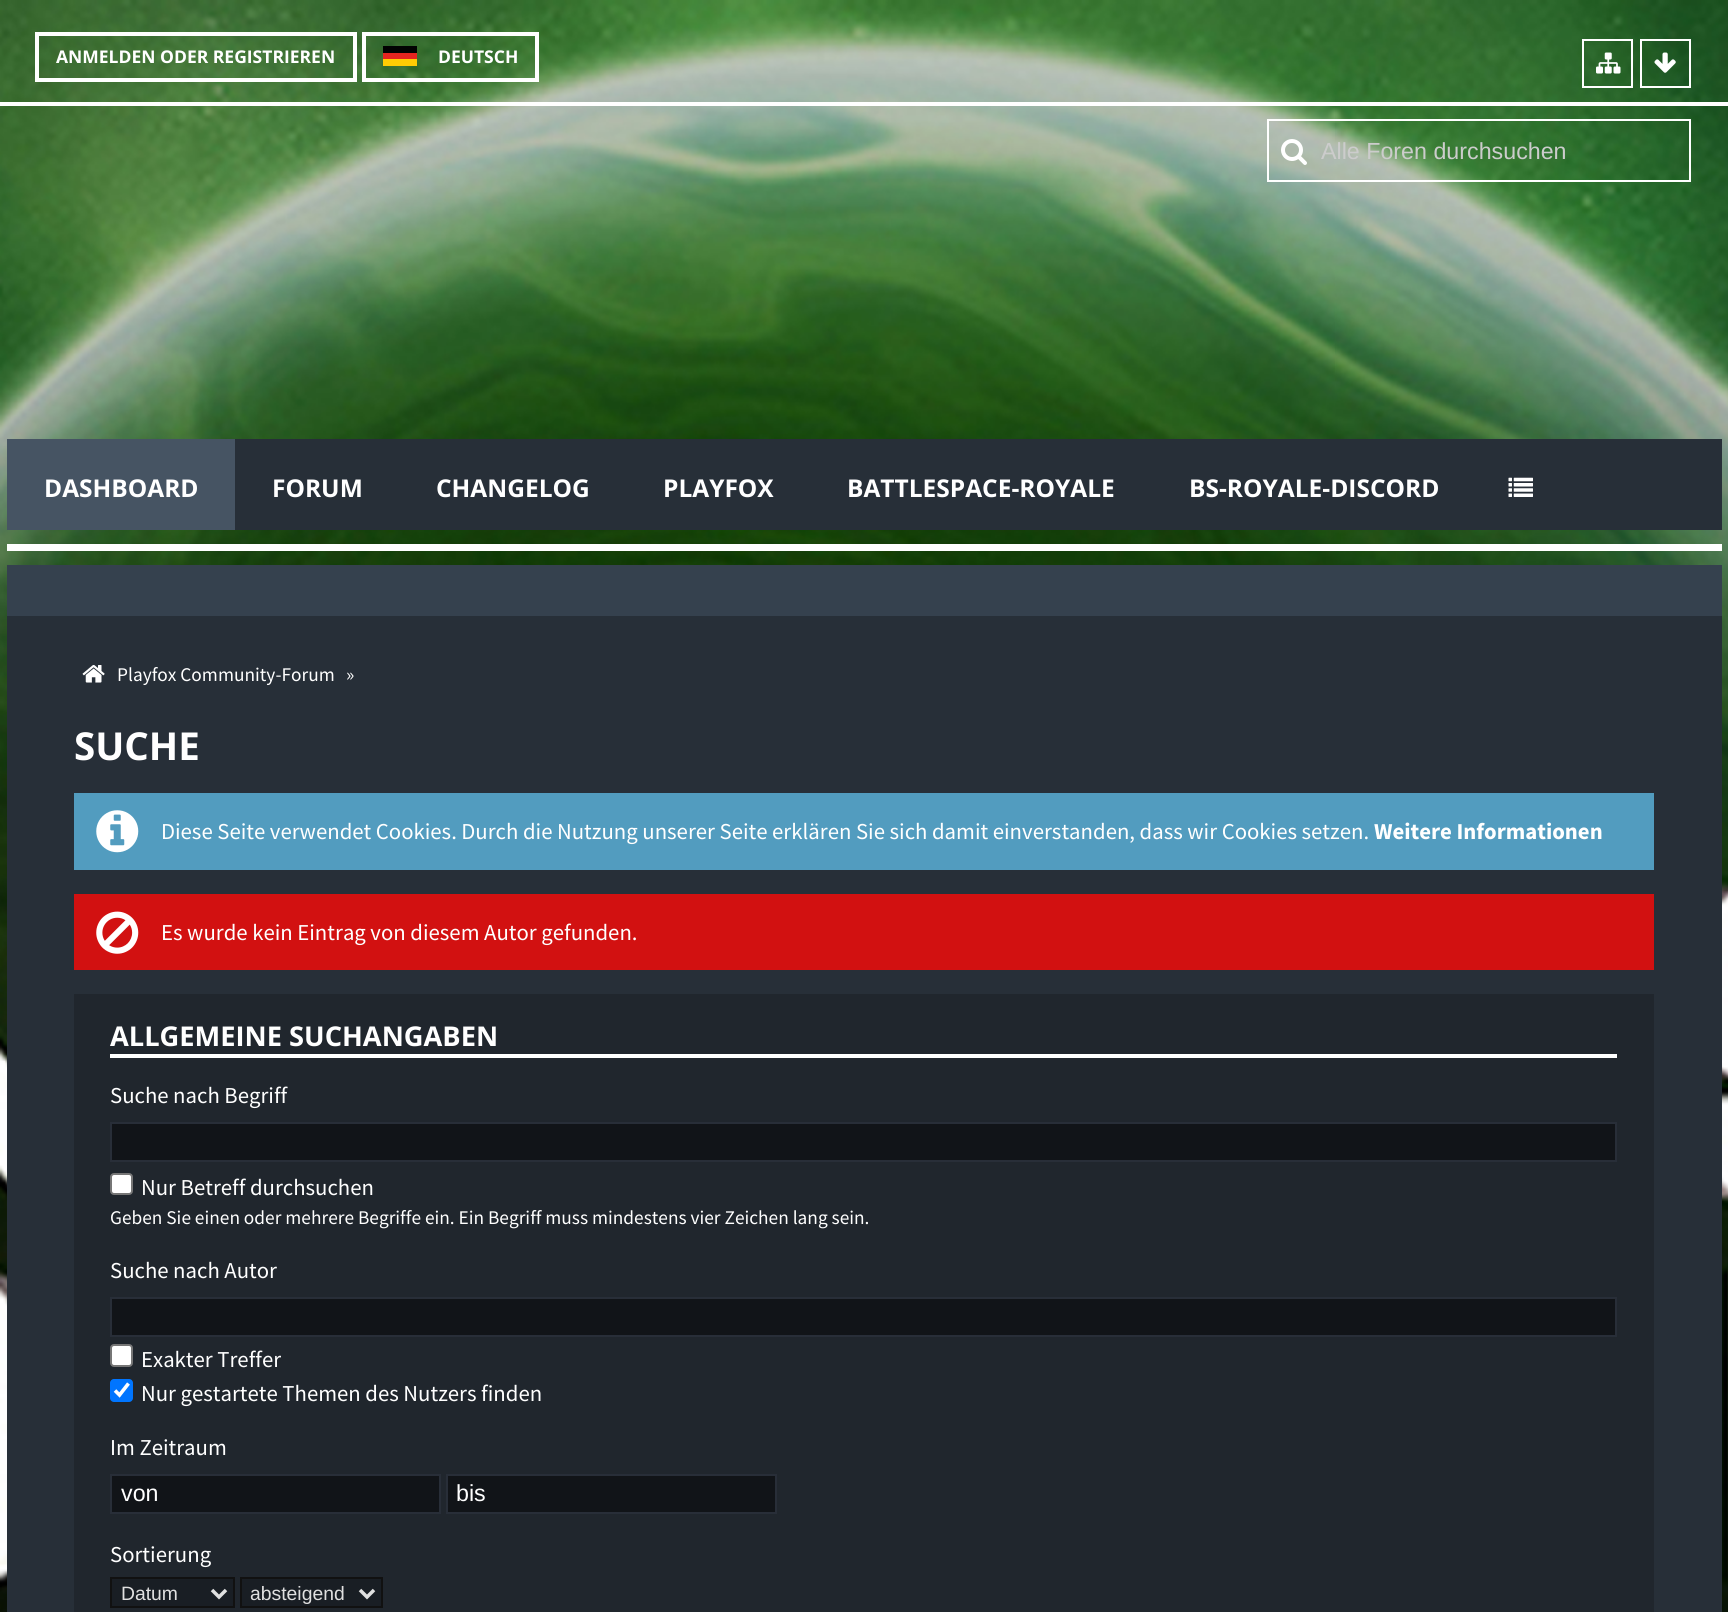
import math
import cairocffi as cairo

surface = cairo.ImageSurface(cairo.FORMAT_RGB24, 1728, 1612)
ctx = cairo.Context(surface)
options = cairo.FontOptions()
options.set_hint_metrics(cairo.HINT_METRICS_OFF)
options.set_hint_style(cairo.HINT_STYLE_NONE)
ctx.set_font_options(options)
ctx.set_miter_limit(4)


def rgb(r, g, b):
    ctx.set_source_rgb(r / 255, g / 255, b / 255)


def face(family, size, italic, bold):
    ctx.select_font_face(family, cairo.FONT_SLANT_ITALIC if italic else cairo.FONT_SLANT_NORMAL, cairo.FONT_WEIGHT_BOLD if bold else cairo.FONT_WEIGHT_NORMAL)
    ctx.set_font_size(size)


def label(x, y, s):
    ctx.move_to(x, y)
    ctx.show_text(s)


def rect(x, y, w, h):
    ctx.rectangle(x, y, w, h)
    ctx.fill()


def rrect(x, y, w, h, r):
    ctx.new_sub_path()
    for i, (u, v) in enumerate([(x + w - r, y + h - r), (x + r, y + h - r), (x + r, y + r), (x + w - r, y + r)]):
        ctx.arc(u, v, r, i * math.pi / 2, (i + 1) * math.pi / 2)
    ctx.close_path()


def image(path, x, y, w, h):
    ctx.save()
    ctx.set_source_surface(cairo.ImageSurface.create_from_png(path), x, y)
    ctx.rectangle(x, y, w, h)
    ctx.fill()
    ctx.restore()


rgb(255, 255, 255)
ctx.paint()
image('image0.png', 0, 0, 1728, 1612)
rgb(53, 65, 78)
rect(7, 565, 1715, 51)
ctx.rectangle(1583, 40, 49, 47)
rgb(255, 255, 255)
ctx.stroke()
image('image1.png', 1596, 52, 25, 22)
ctx.rectangle(1641, 40, 49, 47)
ctx.stroke()
image('image2.png', 1654, 52, 22, 21)
rect(0, 102, 1728, 4)
ctx.rectangle(37, 34, 318, 46)
ctx.set_line_width(4)
ctx.stroke()
face('Open Sans', 17.5, 0, 1)
label(56, 63, 'ANMELDEN ODER REGISTRIEREN')
ctx.rectangle(364, 34, 173, 46)
ctx.stroke()
rgb(1, 2, 2)
rect(383, 46, 34, 7)
rgb(229, 36, 32)
rect(383, 53, 34, 6)
rgb(255, 204, 4)
rect(383, 59, 34, 7)
rgb(255, 255, 255)
label(438, 63, 'DEUTSCH')
ctx.rectangle(1268, 120, 422, 61)
ctx.set_line_width(2)
ctx.stroke()
image('image3.png', 1281, 139, 26, 26)
face('Liberation Sans', 23.25, 0, 0)
rgb(204, 204, 204)
label(1321, 159, 'Alle Foren durchsuchen')
rgb(255, 255, 255)
rect(7, 544, 1715, 7)
rgb(39, 47, 56)
rect(235, 439, 1487, 91)
rgb(70, 84, 99)
rect(7, 439, 228, 91)
face('Open Sans', 24.5, 0, 1)
rgb(255, 255, 255)
label(44, 497, 'DASHBOARD')
label(272, 497, 'FORUM')
label(436, 497, 'CHANGELOG')
label(663, 497, 'PLAYFOX')
label(847, 497, 'BATTLESPACE-ROYALE')
label(1189, 497, 'BS-ROYALE-DISCORD')
image('image4.png', 1508, 477, 25, 20)
rgb(39, 47, 56)
rect(7, 616, 1715, 996)
image('image5.png', 82, 665, 23, 18)
face('Source Sans Pro', 19.35, 0, 0)
rgb(255, 255, 255)
label(117, 681, 'Playfox Community-Forum')
label(346, 681, '»')
face('Open Sans', 38.5, 0, 1)
label(74, 760, 'SUCHE')
rgb(82, 156, 191)
rect(74, 793, 1580, 77)
image('image6.png', 96, 810, 43, 43)
face('Source Sans Pro', 22.75, 0, 0)
rgb(255, 255, 255)
label(161, 839, 'Diese Seite verwendet Cookies. Durch die Nutzung unserer Seite erklären Sie sich damit einverstanden, dass wir Cookies setzen.')
face('Source Sans Pro', 22.75, 0, 1)
label(1374, 839, 'Weitere Informationen')
rgb(210, 17, 17)
rect(74, 894, 1580, 76)
image('image7.png', 96, 911, 43, 43)
face('Source Sans Pro', 22.75, 0, 0)
rgb(255, 255, 255)
label(161, 940, 'Es wurde kein Eintrag von diesem Autor gefunden.')
rgb(32, 38, 45)
rect(74, 994, 1580, 618)
rgb(255, 255, 255)
rect(110, 1054, 1507, 4)
face('Open Sans', 27.25, 0, 1)
label(110, 1046, 'ALLGEMEINE SUCHANGABEN')
face('Source Sans Pro', 22.75, 0, 0)
label(110, 1103, 'Suche nach Begriff')
rgb(17, 20, 24)
ctx.rectangle(111, 1123, 1505, 38)
ctx.fill_preserve()
rgb(40, 46, 56)
ctx.stroke()
rgb(255, 255, 255)
rrect(111, 1174, 21, 20, 3)
ctx.fill_preserve()
rgb(118, 118, 118)
ctx.stroke()
rgb(255, 255, 255)
label(141, 1195, 'Nur Betreff durchsuchen')
face('Source Sans Pro', 19.35, 0, 0)
label(110, 1224, 'Geben Sie einen oder mehrere Begriffe ein. Ein Begriff muss mindestens vier Zeichen lang sein.')
face('Source Sans Pro', 22.75, 0, 0)
label(110, 1278, 'Suche nach Autor')
rgb(17, 20, 24)
ctx.rectangle(111, 1298, 1505, 38)
ctx.fill_preserve()
rgb(40, 46, 56)
ctx.stroke()
rgb(255, 255, 255)
rrect(111, 1345, 21, 21, 3)
ctx.fill_preserve()
rgb(118, 118, 118)
ctx.stroke()
rgb(255, 255, 255)
label(141, 1367, 'Exakter Treffer')
rgb(0, 117, 255)
rrect(110, 1379, 23, 23, 4)
ctx.fill()
ctx.new_path()
ctx.move_to(115, 1390.5)
ctx.line_to(119.5, 1395)
ctx.line_to(128.5, 1383.5)
rgb(255, 255, 255)
ctx.set_line_width(3.6)
ctx.stroke()
label(141, 1401, 'Nur gestartete Themen des Nutzers finden')
label(110, 1455, 'Im Zeitraum')
rgb(17, 20, 24)
ctx.rectangle(111, 1475, 329, 38)
ctx.fill_preserve()
rgb(40, 46, 56)
ctx.set_line_width(2)
ctx.stroke()
face('Liberation Sans', 23.25, 0, 0)
rgb(255, 255, 255)
label(121, 1501, 'von')
rgb(17, 20, 24)
ctx.rectangle(447, 1475, 329, 38)
ctx.fill_preserve()
rgb(40, 46, 56)
ctx.stroke()
rgb(255, 255, 255)
label(456, 1501, 'bis')
face('Source Sans Pro', 22.75, 0, 0)
label(110, 1562, 'Sortierung')
rgb(25, 30, 36)
ctx.rectangle(111, 1578, 123, 29)
ctx.fill_preserve()
rgb(17, 17, 17)
ctx.stroke()
ctx.new_path()
ctx.move_to(212, 1590)
ctx.line_to(219, 1597)
ctx.line_to(226, 1590)
rgb(224, 224, 224)
ctx.set_line_width(3.5)
ctx.stroke()
face('Liberation Sans', 19.35, 0, 0)
label(121, 1600, 'Datum')
rgb(25, 30, 36)
ctx.rectangle(241, 1578, 141, 29)
ctx.fill_preserve()
rgb(17, 17, 17)
ctx.set_line_width(2)
ctx.stroke()
ctx.new_path()
ctx.move_to(360, 1590)
ctx.line_to(367, 1597)
ctx.line_to(374, 1590)
rgb(224, 224, 224)
ctx.set_line_width(3.5)
ctx.stroke()
label(250, 1600, 'absteigend')
surface.write_to_png('render.png')
